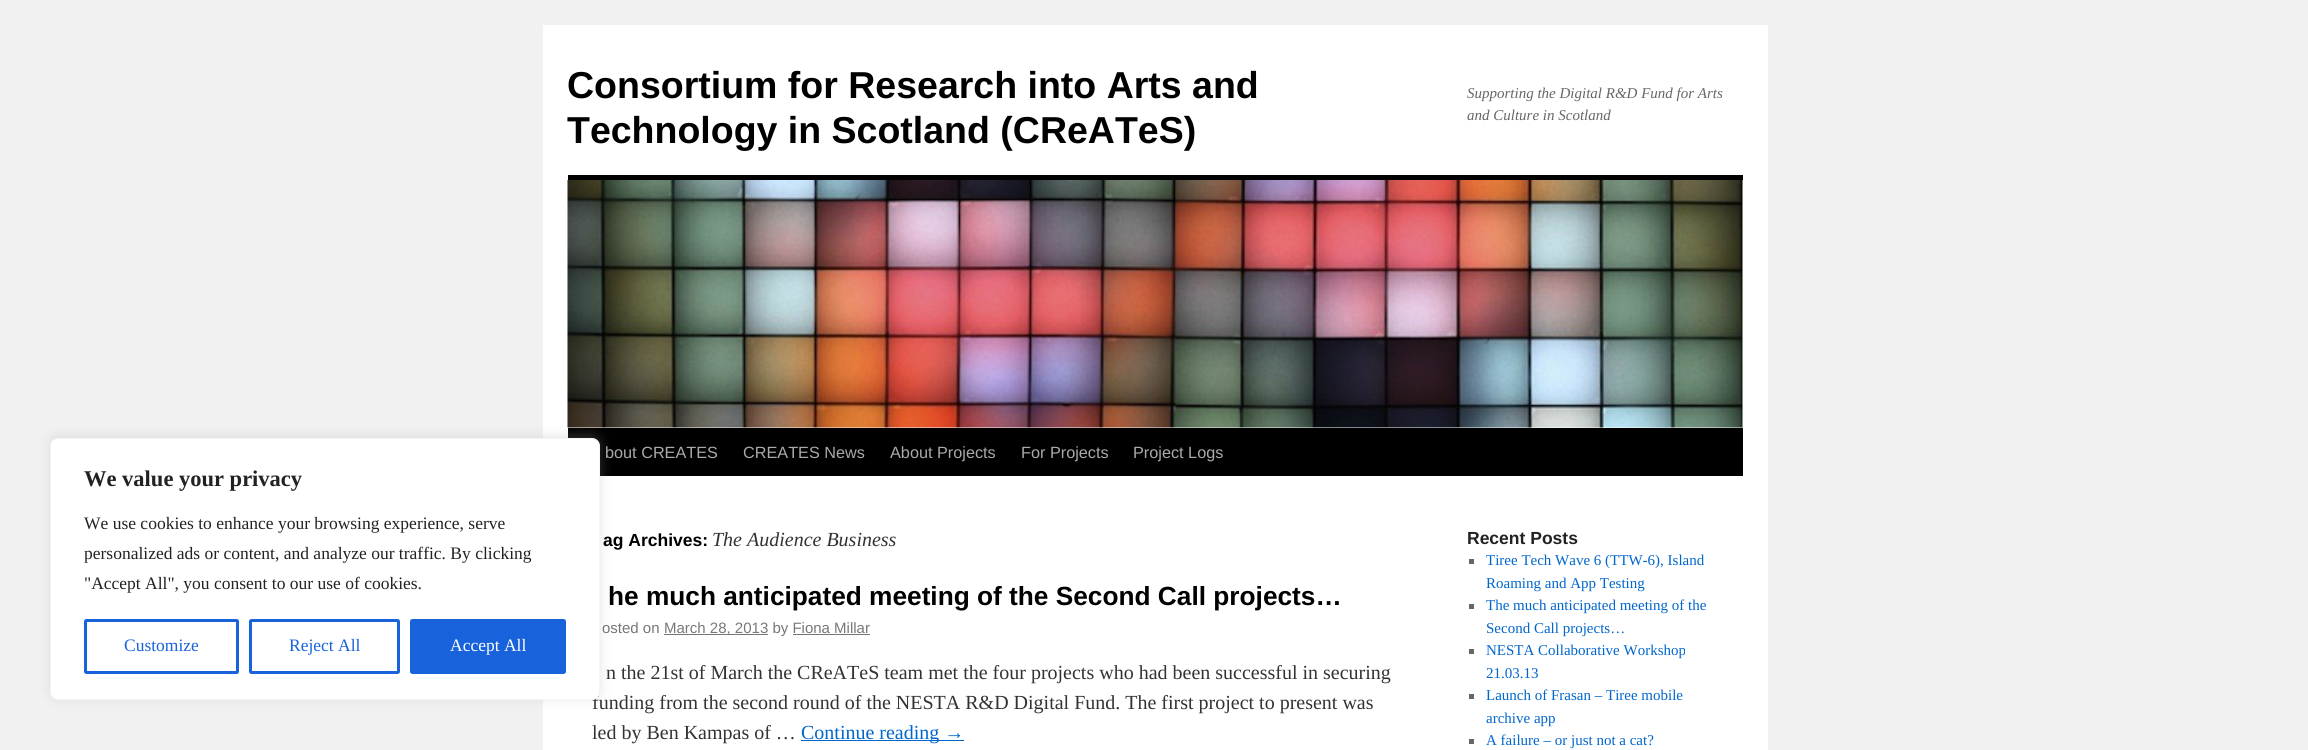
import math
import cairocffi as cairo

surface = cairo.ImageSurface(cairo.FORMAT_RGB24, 2308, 750)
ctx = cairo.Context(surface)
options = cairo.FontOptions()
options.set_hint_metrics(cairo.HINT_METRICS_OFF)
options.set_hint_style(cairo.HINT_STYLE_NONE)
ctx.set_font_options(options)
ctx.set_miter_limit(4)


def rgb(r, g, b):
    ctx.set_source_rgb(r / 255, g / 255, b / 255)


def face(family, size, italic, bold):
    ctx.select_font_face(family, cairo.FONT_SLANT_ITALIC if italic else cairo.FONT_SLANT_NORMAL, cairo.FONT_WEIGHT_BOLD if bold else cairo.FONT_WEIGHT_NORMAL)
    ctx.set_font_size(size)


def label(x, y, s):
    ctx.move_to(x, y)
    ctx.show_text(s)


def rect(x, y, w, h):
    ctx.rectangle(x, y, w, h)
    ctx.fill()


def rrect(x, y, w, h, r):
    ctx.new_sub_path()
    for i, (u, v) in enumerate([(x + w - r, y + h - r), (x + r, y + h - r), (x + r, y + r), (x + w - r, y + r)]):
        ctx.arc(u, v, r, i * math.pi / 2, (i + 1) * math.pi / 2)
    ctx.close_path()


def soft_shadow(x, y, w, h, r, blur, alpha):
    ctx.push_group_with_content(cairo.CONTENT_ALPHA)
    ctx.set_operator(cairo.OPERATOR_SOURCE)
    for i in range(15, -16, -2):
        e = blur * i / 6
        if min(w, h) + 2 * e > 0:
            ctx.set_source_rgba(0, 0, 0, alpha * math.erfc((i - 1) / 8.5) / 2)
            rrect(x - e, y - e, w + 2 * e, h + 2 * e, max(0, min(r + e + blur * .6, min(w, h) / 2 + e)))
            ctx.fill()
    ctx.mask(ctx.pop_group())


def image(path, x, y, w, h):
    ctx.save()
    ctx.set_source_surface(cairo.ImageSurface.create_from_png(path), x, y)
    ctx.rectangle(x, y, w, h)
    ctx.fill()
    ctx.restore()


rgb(241, 241, 241)
ctx.paint()
rgb(255, 255, 255)
rect(543, 25, 1225, 725)
rgb(0, 0, 0)
rect(568, 428, 1175, 48)
image('image0.png', 567, 180, 1176, 248)
rgb(172, 171, 171)
soft_shadow(50, 436, 550, 263, 8, 6, 0.3)
face('Liberation Serif', 20, 0, 0)
rgb(51, 51, 51)
label(592, 709, 'funding from the second round of the NESTA R&D Digital Fund. The first project to present was')
rgb(255, 255, 255)
rrect(50.5, 438.5, 549, 261, 7.5)
ctx.fill_preserve()
rgb(244, 244, 244)
ctx.set_line_width(1)
ctx.stroke()
face('Liberation Serif', 22.5, 0, 1)
rgb(34, 34, 34)
label(84, 486, 'We value your privacy')
face('Liberation Serif', 17.5, 0, 0)
label(84, 529, 'We use cookies to enhance your browsing experience, serve')
label(84, 559, 'personalized ads or content, and analyze our traffic. By clicking')
label(84, 589, '"Accept All", you consent to our use of cookies.')
rrect(85.5, 620.5, 152, 52, 1)
rgb(24, 99, 220)
ctx.set_line_width(3)
ctx.stroke()
label(124, 651, 'Customize')
rrect(250.5, 620.5, 148, 52, 1)
ctx.stroke()
label(289, 651, 'Reject All')
rrect(411.5, 620.5, 153, 52, 1)
ctx.fill_preserve()
ctx.stroke()
rgb(255, 255, 255)
label(450, 651, 'Accept All')
face('Liberation Sans', 37.5, 0, 1)
rgb(0, 0, 0)
label(567, 98, 'Consortium for Research into Arts and')
label(567, 143, 'Technology in Scotland (CReATeS)')
face('Liberation Serif', 15, 1, 0)
rgb(102, 102, 102)
label(1467, 98, 'Supporting the Digital R&D Fund for Arts')
label(1467, 120, 'and Culture in Scotland')
rgb(0, 0, 0)
rect(568, 175, 1175, 5)
face('Liberation Sans', 16.25, 0, 0)
rgb(170, 170, 170)
label(605, 458, 'bout CREATES')
label(743, 458, 'CREATES News')
label(890, 458, 'About Projects')
label(1021, 458, 'For Projects')
label(1133, 458, 'Project Logs')
face('Liberation Sans', 17.5, 0, 1)
rgb(0, 0, 0)
label(603, 546, 'ag Archives:')
face('Liberation Serif', 20, 1, 0)
rgb(51, 51, 51)
label(712, 546, 'The Audience Business')
face('Liberation Sans', 26.25, 0, 1)
rgb(0, 0, 0)
label(608, 605, 'he much anticipated meeting of the Second Call projects…')
face('Liberation Sans', 15, 0, 0)
rgb(119, 119, 119)
label(602, 633, 'osted on')
rect(664, 634, 104, 1)
label(664, 633, 'March 28, 2013 by Fiona Millar')
rect(793, 634, 77, 1)
face('Liberation Serif', 20, 0, 0)
rgb(51, 51, 51)
label(606, 679, 'n the 21st of March the CReATeS team met the four projects who had been successful in securing')
label(592, 739, 'led by Ben Kampas of …')
rgb(0, 102, 204)
rect(801, 740, 163, 1)
label(801, 739, 'Continue reading →')
face('Liberation Sans', 17.5, 0, 1)
rgb(34, 34, 34)
label(1467, 544, 'Recent Posts')
rgb(102, 102, 102)
rect(1469, 559, 5, 5)
face('Liberation Serif', 15, 0, 0)
rgb(0, 102, 204)
label(1486, 565, 'Tiree Tech Wave 6 (TTW-6), Island')
label(1486, 588, 'Roaming and App Testing')
rgb(102, 102, 102)
rect(1469, 604, 5, 5)
rgb(0, 102, 204)
label(1486, 610, 'The much anticipated meeting of the')
label(1486, 633, 'Second Call projects…')
rgb(102, 102, 102)
rect(1469, 649, 5, 5)
rgb(0, 102, 204)
label(1486, 655, 'NESTA Collaborative Workshop')
label(1486, 678, '21.03.13')
rgb(102, 102, 102)
rect(1469, 694, 5, 5)
rgb(0, 102, 204)
label(1486, 700, 'Launch of Frasan – Tiree mobile')
label(1486, 723, 'archive app')
rgb(102, 102, 102)
rect(1469, 739, 5, 5)
rgb(0, 102, 204)
label(1486, 745, 'A failure – or just not a cat?')
surface.write_to_png('render.png')
